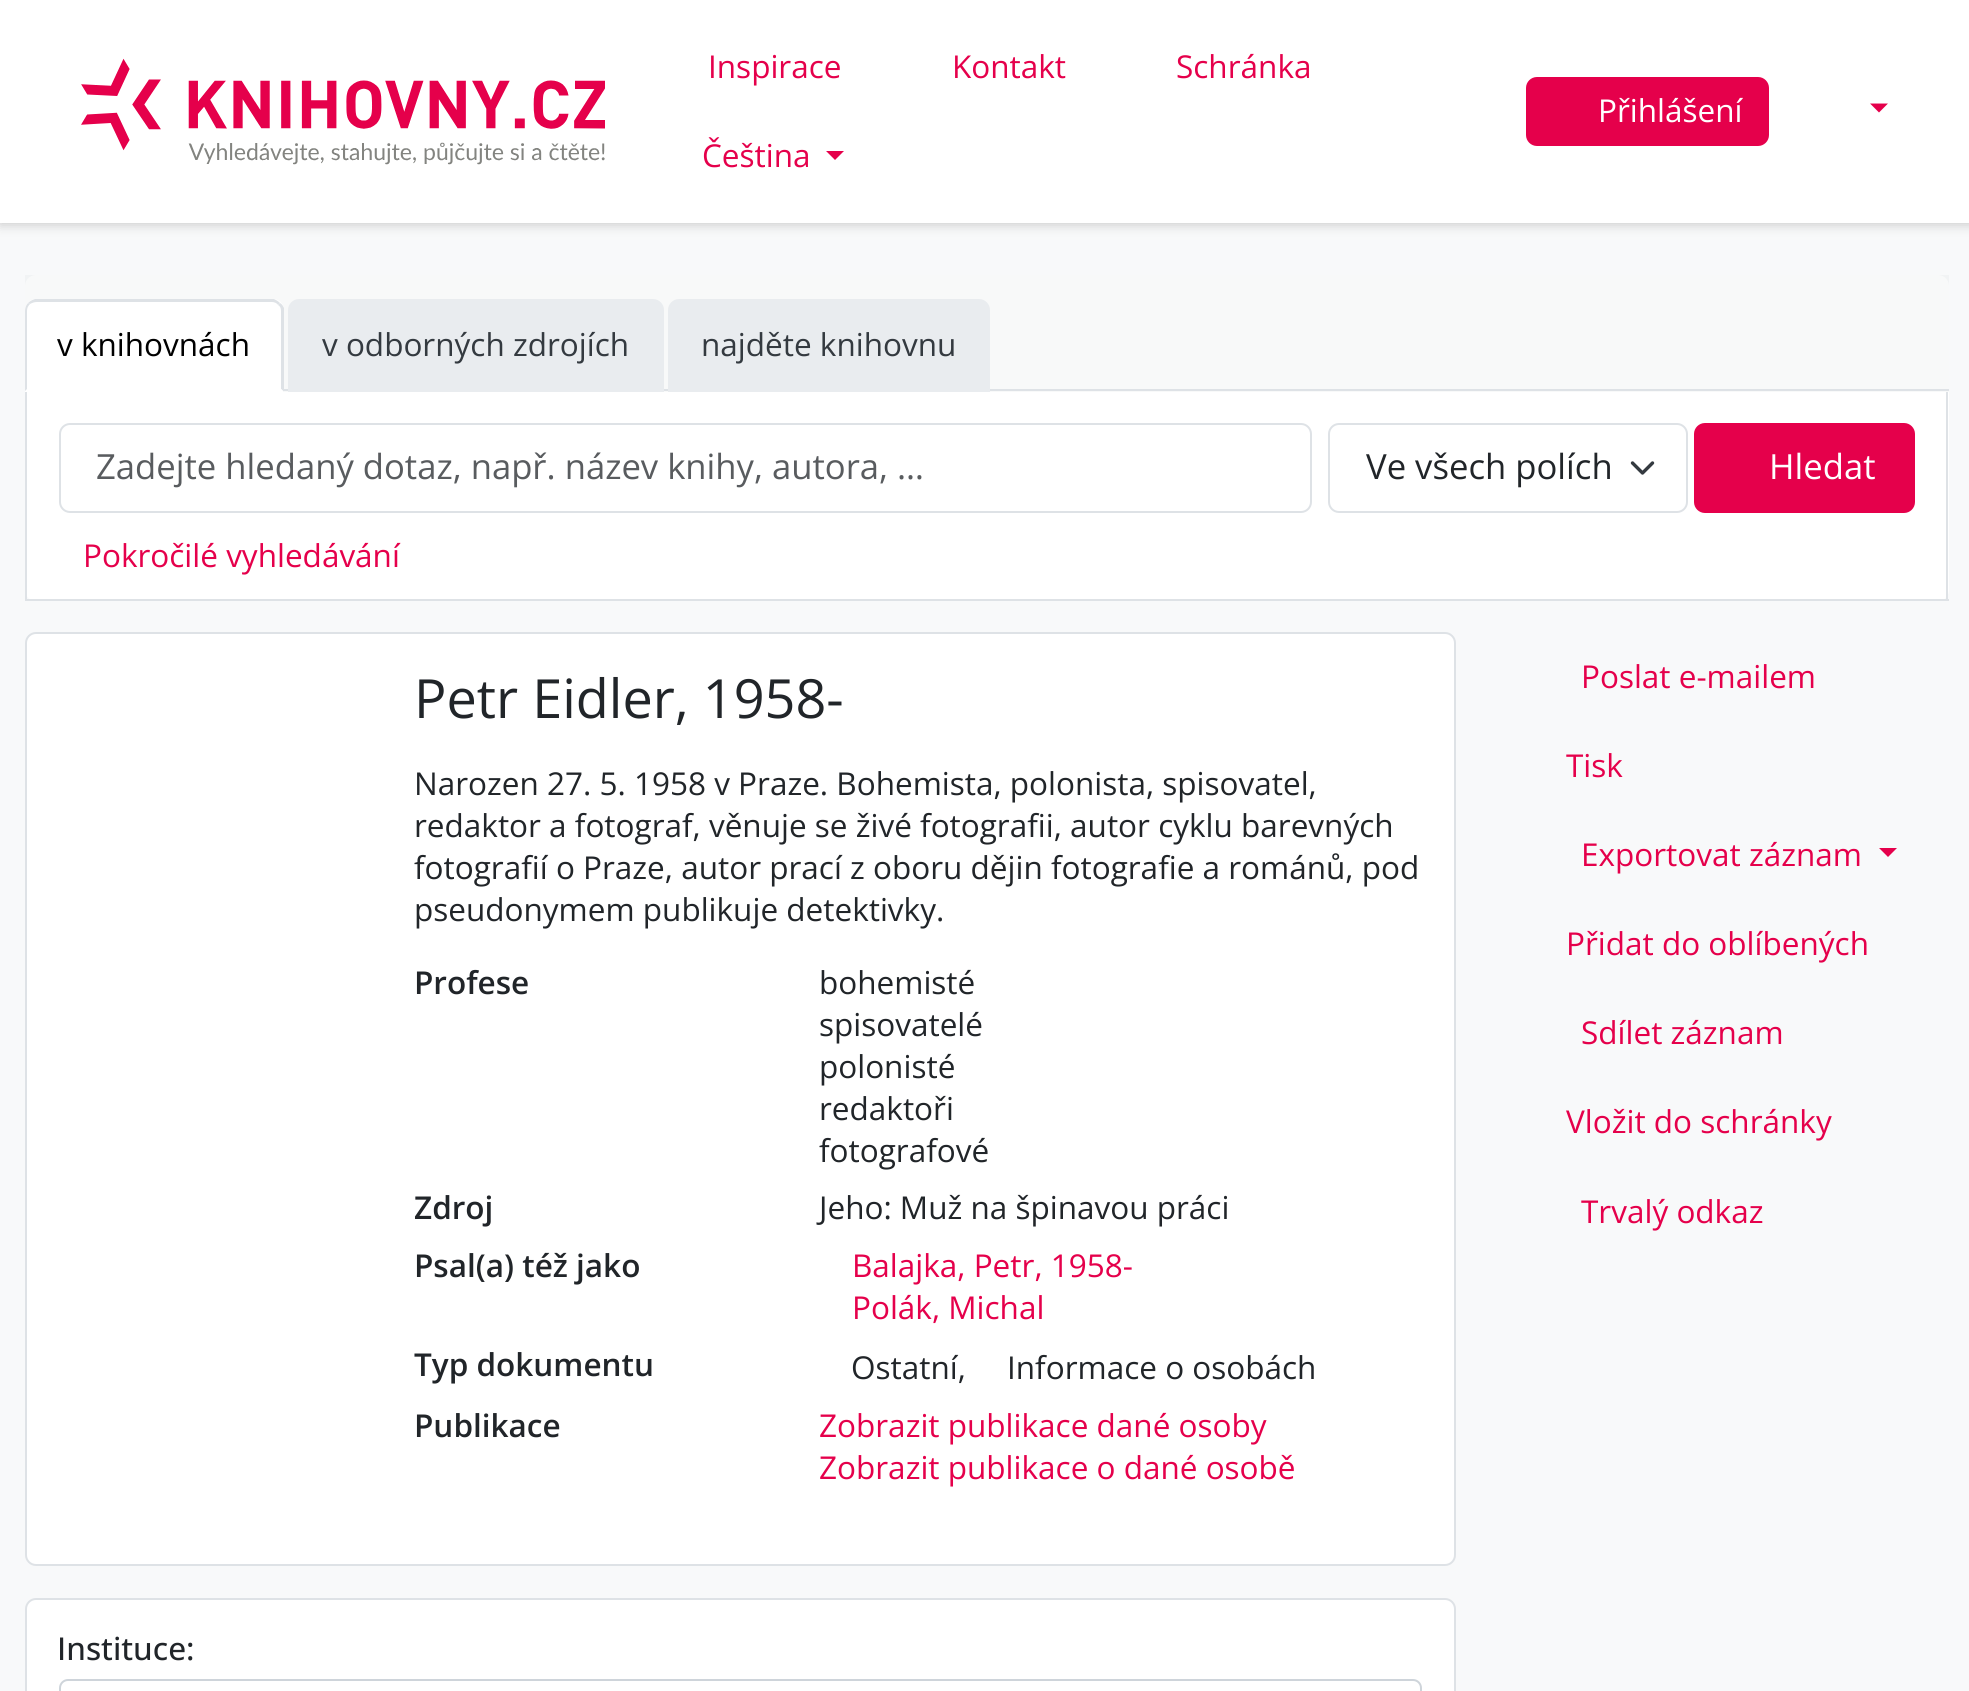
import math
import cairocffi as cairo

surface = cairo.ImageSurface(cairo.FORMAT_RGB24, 1969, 1691)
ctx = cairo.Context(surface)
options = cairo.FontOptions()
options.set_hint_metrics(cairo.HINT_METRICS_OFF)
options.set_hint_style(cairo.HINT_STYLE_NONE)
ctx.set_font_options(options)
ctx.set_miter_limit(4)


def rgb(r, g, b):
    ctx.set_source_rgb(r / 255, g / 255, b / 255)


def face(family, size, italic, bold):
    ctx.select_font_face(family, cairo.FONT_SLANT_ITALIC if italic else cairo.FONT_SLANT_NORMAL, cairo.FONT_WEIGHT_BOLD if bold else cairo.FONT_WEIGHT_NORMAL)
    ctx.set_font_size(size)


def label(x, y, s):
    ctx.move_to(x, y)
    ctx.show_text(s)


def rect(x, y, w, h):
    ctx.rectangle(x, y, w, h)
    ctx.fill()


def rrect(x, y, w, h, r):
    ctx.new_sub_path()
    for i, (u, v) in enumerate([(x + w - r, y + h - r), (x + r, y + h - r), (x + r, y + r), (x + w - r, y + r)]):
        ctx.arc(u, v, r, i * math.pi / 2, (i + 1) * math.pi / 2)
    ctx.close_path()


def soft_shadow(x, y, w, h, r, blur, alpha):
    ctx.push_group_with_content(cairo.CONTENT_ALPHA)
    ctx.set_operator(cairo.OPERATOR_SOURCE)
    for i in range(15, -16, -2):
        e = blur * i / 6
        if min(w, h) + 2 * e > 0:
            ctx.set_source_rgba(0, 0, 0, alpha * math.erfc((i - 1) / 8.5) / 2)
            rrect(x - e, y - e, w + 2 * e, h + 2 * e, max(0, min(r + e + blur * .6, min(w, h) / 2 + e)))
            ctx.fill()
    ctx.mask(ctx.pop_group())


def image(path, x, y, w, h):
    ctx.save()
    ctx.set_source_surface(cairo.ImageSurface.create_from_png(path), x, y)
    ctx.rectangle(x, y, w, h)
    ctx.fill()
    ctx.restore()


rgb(248, 249, 250)
ctx.paint()
rgb(204, 204, 204)
soft_shadow(0, 2, 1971, 223, 0, 5.5, 1)
rgb(255, 255, 255)
rect(0, 0, 1969, 223)
image('image0.png', 81, 58, 524, 107)
face('Open Sans', 31.5, 0, 0)
rgb(229, 0, 75)
label(708, 78, 'Inspirace')
label(952, 78, 'Kontakt')
label(1176, 78, 'Schránka')
label(702, 167, 'Čeština')
ctx.new_path()
ctx.move_to(826, 151)
ctx.line_to(844, 151)
ctx.line_to(835, 160)
ctx.close_path()
ctx.fill()
rrect(1527, 78, 241, 67, 10)
ctx.fill_preserve()
ctx.stroke()
rgb(255, 255, 255)
label(1598, 122, 'Přihlášení')
rgb(229, 0, 75)
ctx.new_path()
ctx.move_to(1870, 103.5)
ctx.line_to(1888, 103.5)
ctx.line_to(1879, 112.5)
ctx.close_path()
ctx.fill()
rgb(255, 255, 255)
rrect(25, 275, 1924, 326, 11)
ctx.fill()
ctx.set_source_rgba(0.129, 0.145, 0.161, 0.03)
rect(25, 275, 1924, 117)
rgb(222, 226, 230)
rect(284, 389, 1665, 2)
rgb(255, 255, 255)
ctx.new_path()
ctx.move_to(36, 299)
ctx.line_to(273, 299)
ctx.curve_to(279, 299, 284, 304, 284, 310)
ctx.line_to(284, 392)
ctx.line_to(25, 392)
ctx.line_to(25, 310)
ctx.curve_to(25, 304, 30, 299, 36, 299)
ctx.close_path()
ctx.fill()
rgb(222, 226, 230)
ctx.new_path()
ctx.move_to(37, 302)
ctx.curve_to(34, 302, 32, 303, 30, 304)
ctx.line_to(28, 303)
ctx.curve_to(30, 301, 32, 300, 35, 299)
ctx.line_to(274, 299)
ctx.curve_to(276, 300, 278, 301, 280, 303)
ctx.line_to(278, 305)
ctx.curve_to(277, 303, 274, 302, 272, 302)
ctx.close_path()
ctx.fill()
ctx.new_path()
ctx.move_to(280, 303)
ctx.curve_to(282, 304, 283, 306, 284, 308)
ctx.line_to(284, 392)
ctx.line_to(281, 389)
ctx.line_to(281, 311)
ctx.curve_to(281, 308, 280, 306, 278, 305)
ctx.close_path()
ctx.fill()
rgb(255, 255, 255)
ctx.new_path()
ctx.move_to(284, 392)
ctx.line_to(25, 392)
ctx.line_to(27, 389)
ctx.line_to(281, 389)
ctx.close_path()
ctx.fill()
rgb(222, 226, 230)
ctx.new_path()
ctx.move_to(25, 391)
ctx.line_to(25, 311)
ctx.curve_to(25, 308, 26, 305, 28, 303)
ctx.line_to(30, 304)
ctx.curve_to(28, 306, 27, 308, 27, 311)
ctx.line_to(27, 389)
ctx.close_path()
ctx.fill()
rgb(0, 0, 0)
label(57, 356, 'v knihovnách')
rgb(233, 236, 239)
ctx.new_path()
ctx.move_to(299, 299)
ctx.line_to(653, 299)
ctx.curve_to(659, 299, 664, 304, 664, 310)
ctx.line_to(664, 392)
ctx.line_to(288, 392)
ctx.line_to(288, 310)
ctx.curve_to(288, 304, 293, 299, 299, 299)
ctx.close_path()
ctx.fill()
rgb(52, 58, 64)
label(322, 356, 'v odborných zdrojích')
rgb(233, 236, 239)
ctx.new_path()
ctx.move_to(679, 299)
ctx.line_to(979, 299)
ctx.curve_to(985, 299, 990, 304, 990, 310)
ctx.line_to(990, 392)
ctx.line_to(668, 392)
ctx.line_to(668, 310)
ctx.curve_to(668, 304, 673, 299, 679, 299)
ctx.close_path()
ctx.fill()
rgb(52, 58, 64)
label(701, 356, 'najděte knihovnu')
rgb(222, 226, 230)
rect(1946, 392, 2, 209)
rect(25, 599, 1924, 2)
rect(25, 392, 2, 209)
rrect(60, 424, 1251, 88, 10)
ctx.stroke()
face('Open Sans', 34.65, 0, 0)
rgb(89, 92, 95)
label(96, 479, 'Zadejte hledaný dotaz, např. název knihy, autora, …')
ctx.new_path()
ctx.move_to(1632.5, 463)
ctx.line_to(1642.5, 473)
ctx.line_to(1652.5, 463)
rgb(52, 58, 64)
ctx.set_line_width(3.4)
ctx.set_line_cap(cairo.LINE_CAP_ROUND)
ctx.set_line_join(cairo.LINE_JOIN_ROUND)
ctx.stroke()
rrect(1329, 424, 358, 88, 10)
rgb(222, 226, 230)
ctx.set_line_width(2)
ctx.set_line_cap(cairo.LINE_CAP_BUTT)
ctx.set_line_join(cairo.LINE_JOIN_MITER)
ctx.stroke()
rgb(33, 37, 41)
label(1366, 479, 'Ve všech polích')
rgb(229, 0, 75)
rrect(1695, 424, 219, 88, 10)
ctx.fill_preserve()
ctx.stroke()
rgb(255, 255, 255)
label(1769, 479, 'Hledat')
face('Open Sans', 31.5, 0, 0)
rgb(229, 0, 75)
label(83, 567, 'Pokročilé vyhledávání')
rgb(255, 255, 255)
rrect(26, 633, 1429, 932, 10)
ctx.fill_preserve()
rgb(222, 226, 230)
ctx.stroke()
face('Open Sans', 54, 0, 0)
rgb(33, 37, 41)
label(414, 718, 'Petr Eidler, 1958-')
face('Open Sans', 31.5, 0, 0)
label(414, 795, 'Narozen 27. 5. 1958 v Praze. Bohemista, polonista, spisovatel,')
label(414, 837, 'redaktor a fotograf, věnuje se živé fotografii, autor cyklu barevných')
label(414, 879, 'fotografií o Praze, autor prací z oboru dějin fotografie a románů, pod')
label(414, 921, 'pseudonymem publikuje detektivky.')
face('Open Sans SemiBold', 31.5, 0, 0)
label(414, 994, 'Profese')
face('Open Sans', 31.5, 0, 0)
label(819, 994, 'bohemisté')
label(819, 1036, 'spisovatelé')
label(819, 1078, 'polonisté')
label(819, 1120, 'redaktoři')
label(819, 1162, 'fotografové')
face('Open Sans SemiBold', 31.5, 0, 0)
label(414, 1219, 'Zdroj')
face('Open Sans', 31.5, 0, 0)
label(819, 1219, 'Jeho: Muž na špinavou práci')
face('Open Sans SemiBold', 31.5, 0, 0)
label(414, 1277, 'Psal(a) též jako')
face('Open Sans', 31.5, 0, 0)
rgb(229, 0, 75)
label(852, 1277, 'Balajka, Petr, 1958-')
label(852, 1319, 'Polák, Michal')
face('Open Sans SemiBold', 31.5, 0, 0)
rgb(33, 37, 41)
label(414, 1376, 'Typ dokumentu')
face('Open Sans', 31.5, 0, 0)
label(851, 1379, 'Ostatní,')
label(1007, 1379, 'Informace o osobách')
face('Open Sans SemiBold', 31.5, 0, 0)
label(414, 1437, 'Publikace')
face('Open Sans', 31.5, 0, 0)
rgb(229, 0, 75)
label(819, 1437, 'Zobrazit publikace dané osoby')
label(819, 1479, 'Zobrazit publikace o dané osobě')
rgb(255, 255, 255)
rrect(26, 1599, 1429, 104, 10)
ctx.fill_preserve()
rgb(222, 226, 230)
ctx.stroke()
face('Open Sans Medium', 31.5, 0, 0)
rgb(33, 37, 41)
label(57, 1660, 'Instituce:')
rrect(60, 1680, 1361, 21, 8)
rgb(206, 212, 218)
ctx.stroke()
face('Open Sans', 31.5, 0, 0)
rgb(229, 0, 75)
label(1581, 688, 'Poslat e-mailem')
label(1566, 777, 'Tisk')
label(1581, 866, 'Exportovat záznam')
ctx.new_path()
ctx.move_to(1879, 848)
ctx.line_to(1897, 848)
ctx.line_to(1888, 857)
ctx.close_path()
ctx.fill()
label(1566, 955, 'Přidat do oblíbených')
label(1581, 1044, 'Sdílet záznam')
label(1566, 1133, 'Vložit do schránky')
label(1581, 1223, 'Trvalý odkaz')
surface.write_to_png('render.png')
